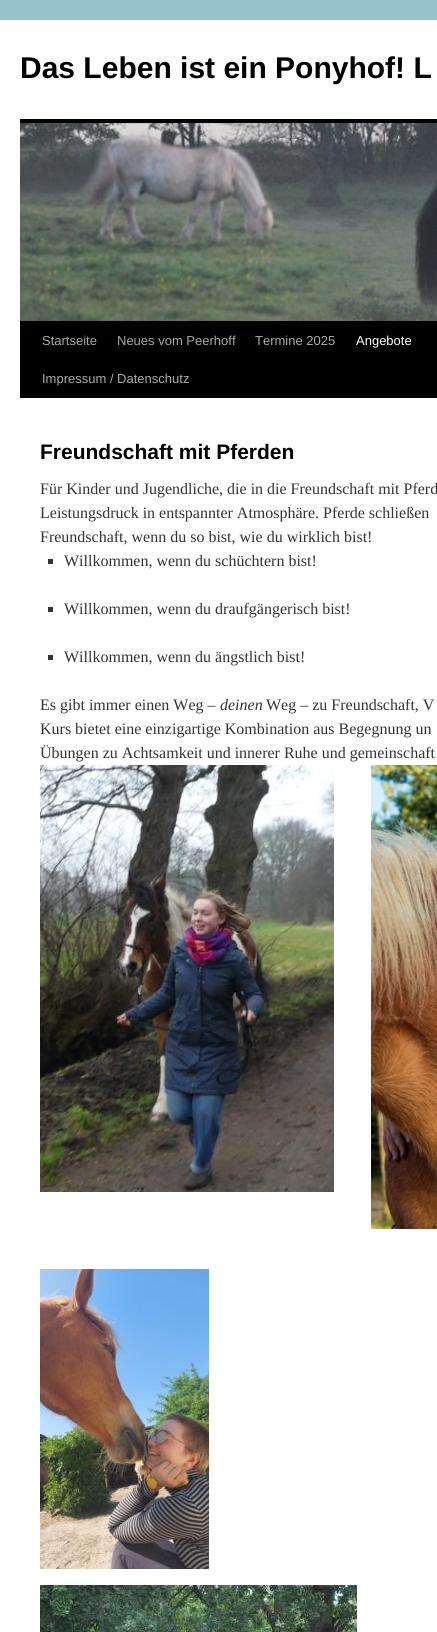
import math
import cairocffi as cairo

surface = cairo.ImageSurface(cairo.FORMAT_RGB24, 437, 1632)
ctx = cairo.Context(surface)
options = cairo.FontOptions()
options.set_hint_metrics(cairo.HINT_METRICS_OFF)
options.set_hint_style(cairo.HINT_STYLE_NONE)
ctx.set_font_options(options)
ctx.set_miter_limit(4)


def rgb(r, g, b):
    ctx.set_source_rgb(r / 255, g / 255, b / 255)


def face(family, size, italic, bold):
    ctx.select_font_face(family, cairo.FONT_SLANT_ITALIC if italic else cairo.FONT_SLANT_NORMAL, cairo.FONT_WEIGHT_BOLD if bold else cairo.FONT_WEIGHT_NORMAL)
    ctx.set_font_size(size)


def label(x, y, s):
    ctx.move_to(x, y)
    ctx.show_text(s)


def rect(x, y, w, h):
    ctx.rectangle(x, y, w, h)
    ctx.fill()


def image(path, x, y, w, h):
    ctx.save()
    ctx.set_source_surface(cairo.ImageSurface.create_from_png(path), x, y)
    ctx.rectangle(x, y, w, h)
    ctx.fill()
    ctx.restore()


rgb(150, 194, 204)
ctx.paint()
rgb(255, 255, 255)
rect(0, 20, 437, 1612)
face('Liberation Sans', 30, 0, 1)
rgb(0, 0, 0)
label(20, 78, 'Das Leben ist ein Ponyhof! L')
rect(20, 119, 417, 4)
rect(20, 321, 417, 77)
image('image0.png', 20, 123, 417, 198)
face('Liberation Sans', 13, 0, 0)
rgb(170, 170, 170)
label(42, 345, 'Startseite')
label(117, 345, 'Neues vom Peerhoff')
label(255, 345, 'Termine 2025')
rgb(255, 255, 255)
label(356, 345, 'Angebote')
rgb(170, 170, 170)
label(42, 383, 'Impressum / Datenschutz')
face('Liberation Sans', 21, 0, 1)
rgb(0, 0, 0)
label(40, 459, 'Freundschaft mit Pferden')
face('Liberation Serif', 16, 0, 0)
rgb(51, 51, 51)
label(40, 494, 'Für Kinder und Jugendliche, die in die Freundschaft mit Pferd')
label(40, 518, 'Leistungsdruck in entspannter Atmosphäre. Pferde schließen')
label(40, 542, 'Freundschaft, wenn du so bist, wie du wirklich bist!')
rect(48, 559, 5, 5)
label(64, 566, 'Willkommen, wenn du schüchtern bist!')
rect(48, 607, 5, 5)
label(64, 614, 'Willkommen, wenn du draufgängerisch bist!')
rect(48, 655, 5, 5)
label(64, 662, 'Willkommen, wenn du ängstlich bist!')
label(40, 710, 'Es gibt immer einen Weg –')
face('Liberation Serif', 16, 1, 0)
label(220, 710, 'deinen')
face('Liberation Serif', 16, 0, 0)
label(266, 710, 'Weg – zu Freundschaft, V')
label(40, 734, 'Kurs bietet eine einzigartige Kombination aus Begegnung un')
label(40, 758, 'Übungen zu Achtsamkeit und innerer Ruhe und gemeinschaft')
image('image1.png', 40, 765, 294, 427)
image('image2.png', 371, 765, 66, 464)
image('image3.png', 40, 1269, 169, 300)
image('image4.png', 40, 1585, 317, 47)
surface.write_to_png('render.png')
